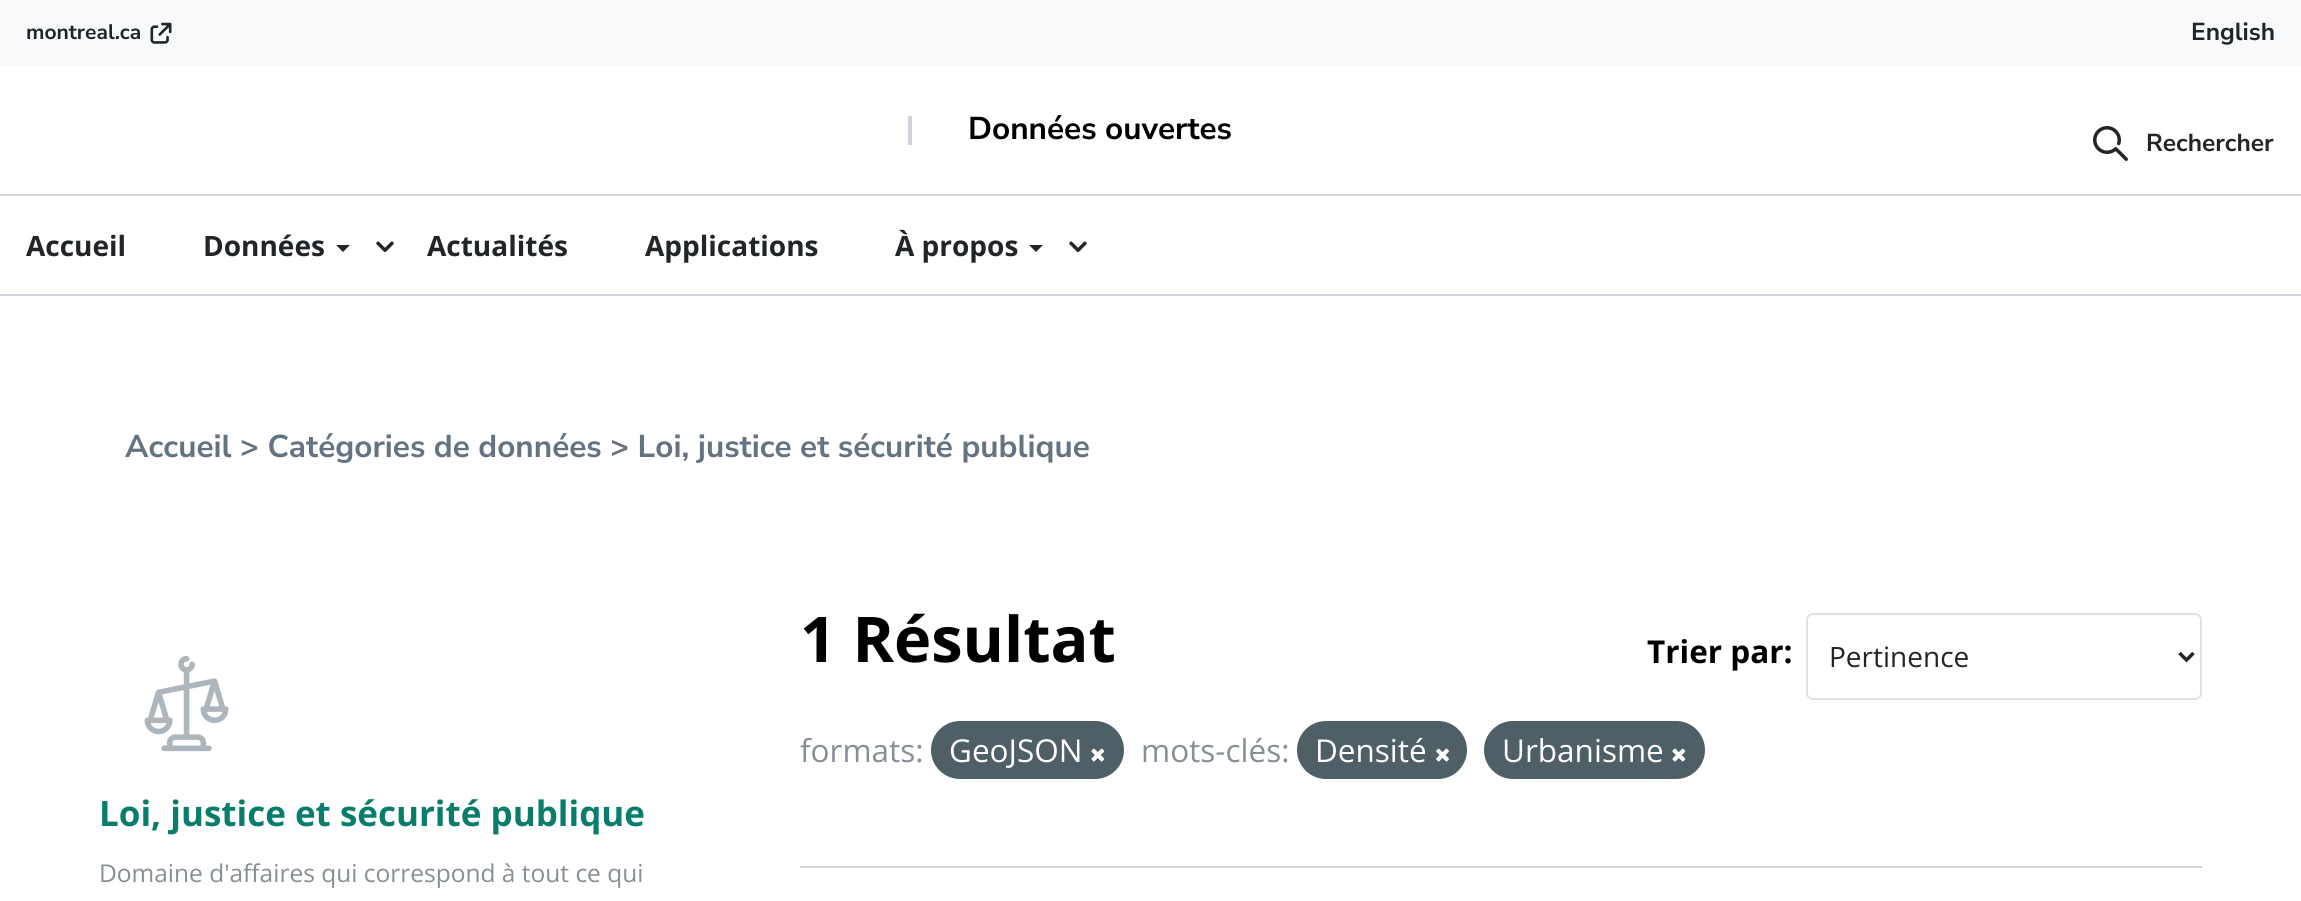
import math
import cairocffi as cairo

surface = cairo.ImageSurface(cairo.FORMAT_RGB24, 2301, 901)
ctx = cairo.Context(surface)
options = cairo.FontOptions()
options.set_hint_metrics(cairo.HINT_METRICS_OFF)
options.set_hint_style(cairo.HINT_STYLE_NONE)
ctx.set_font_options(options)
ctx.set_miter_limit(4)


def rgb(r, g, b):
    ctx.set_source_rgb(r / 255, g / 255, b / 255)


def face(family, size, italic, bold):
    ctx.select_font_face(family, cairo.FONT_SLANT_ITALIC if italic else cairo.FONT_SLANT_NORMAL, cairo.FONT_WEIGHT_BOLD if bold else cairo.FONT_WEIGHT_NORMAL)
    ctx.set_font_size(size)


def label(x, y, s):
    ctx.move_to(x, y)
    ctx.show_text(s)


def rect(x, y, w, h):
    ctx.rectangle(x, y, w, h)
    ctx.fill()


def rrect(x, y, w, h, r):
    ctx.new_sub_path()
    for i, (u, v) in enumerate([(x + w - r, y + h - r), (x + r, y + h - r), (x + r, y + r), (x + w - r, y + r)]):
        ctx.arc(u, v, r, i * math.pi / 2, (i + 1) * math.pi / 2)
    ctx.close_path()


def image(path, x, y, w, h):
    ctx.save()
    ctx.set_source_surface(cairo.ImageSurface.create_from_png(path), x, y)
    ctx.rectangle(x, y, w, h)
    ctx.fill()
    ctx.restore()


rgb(255, 255, 255)
ctx.paint()
rgb(248, 249, 250)
rect(0, 0, 2301, 65)
face('Nunito Sans', 21, 0, 1)
rgb(33, 37, 41)
label(26, 39, 'montreal.ca')
image('image0.png', 150, 22, 22, 22)
face('Nunito Sans', 24.5, 0, 1)
label(2191, 40, 'English')
rgb(206, 212, 218)
rect(0, 294, 2301, 2)
rect(0, 194, 2301, 2)
rect(908, 116, 4, 29)
face('Nunito Sans', 31.5, 0, 1)
rgb(0, 0, 0)
label(968, 139, 'Données ouvertes')
image('image1.png', 2093, 126, 35, 35)
face('Nunito Sans', 24.5, 0, 1)
rgb(33, 37, 41)
label(2146, 151, 'Rechercher')
face('Open Sans', 28, 0, 1)
label(26, 256, 'Accueil')
label(203, 256, 'Données')
ctx.new_path()
ctx.move_to(336, 245)
ctx.line_to(350, 245)
ctx.line_to(343, 252)
ctx.close_path()
ctx.fill()
image('image2.png', 376, 241, 18, 11)
label(427, 256, 'Actualités')
label(645, 256, 'Applications')
label(895, 256, 'À propos')
ctx.new_path()
ctx.move_to(1029, 245)
ctx.line_to(1043, 245)
ctx.line_to(1036, 252)
ctx.close_path()
ctx.fill()
image('image2.png', 1069, 241, 18, 11)
face('Nunito Sans', 31.5, 0, 1)
rgb(99, 115, 129)
label(125, 457, 'Accueil > Catégories de données > Loi, justice et sécurité publique')
face('Open Sans', 63, 0, 1)
rgb(0, 0, 0)
label(800, 662, '1 Résultat')
face('Open Sans', 31.5, 0, 1)
label(1647, 663, 'Trier par:')
rrect(1807, 614, 394, 85, 6)
rgb(222, 226, 230)
ctx.stroke()
ctx.new_path()
ctx.move_to(2179.5, 653)
ctx.line_to(2186.5, 660)
ctx.line_to(2193.5, 653)
rgb(33, 37, 41)
ctx.set_line_width(3.5)
ctx.stroke()
face('Open Sans', 28, 0, 0)
label(1829, 667, 'Pertinence')
face('Open Sans', 31.5, 0, 0)
rgb(134, 142, 150)
label(800, 762, 'formats:')
rgb(78, 95, 101)
rrect(931, 721, 193, 58, 29)
ctx.fill()
rgb(255, 255, 255)
label(949, 762, 'GeoJSON')
image('image3.png', 1091, 748, 14, 14)
rgb(134, 142, 150)
label(1141, 762, 'mots-clés:')
rgb(78, 95, 101)
rrect(1297, 721, 170, 58, 29)
ctx.fill()
rgb(255, 255, 255)
label(1315, 762, 'Densité')
image('image4.png', 1436, 748, 13, 14)
rgb(78, 95, 101)
rrect(1484, 721, 221, 58, 29)
ctx.fill()
rgb(255, 255, 255)
label(1502, 762, 'Urbanisme')
image('image3.png', 1672, 748, 14, 14)
rgb(206, 212, 218)
rect(800, 866, 1402, 2)
image('image5.png', 144, 655, 85, 97)
face('Open Sans', 35, 0, 1)
rgb(9, 125, 108)
label(99, 826, 'Loi, justice et sécurité publique')
face('Open Sans', 24.5, 0, 0)
rgb(134, 142, 150)
label(99, 882, 'Domaine d\'affaires qui correspond à tout ce qui')
surface.write_to_png('render.png')
